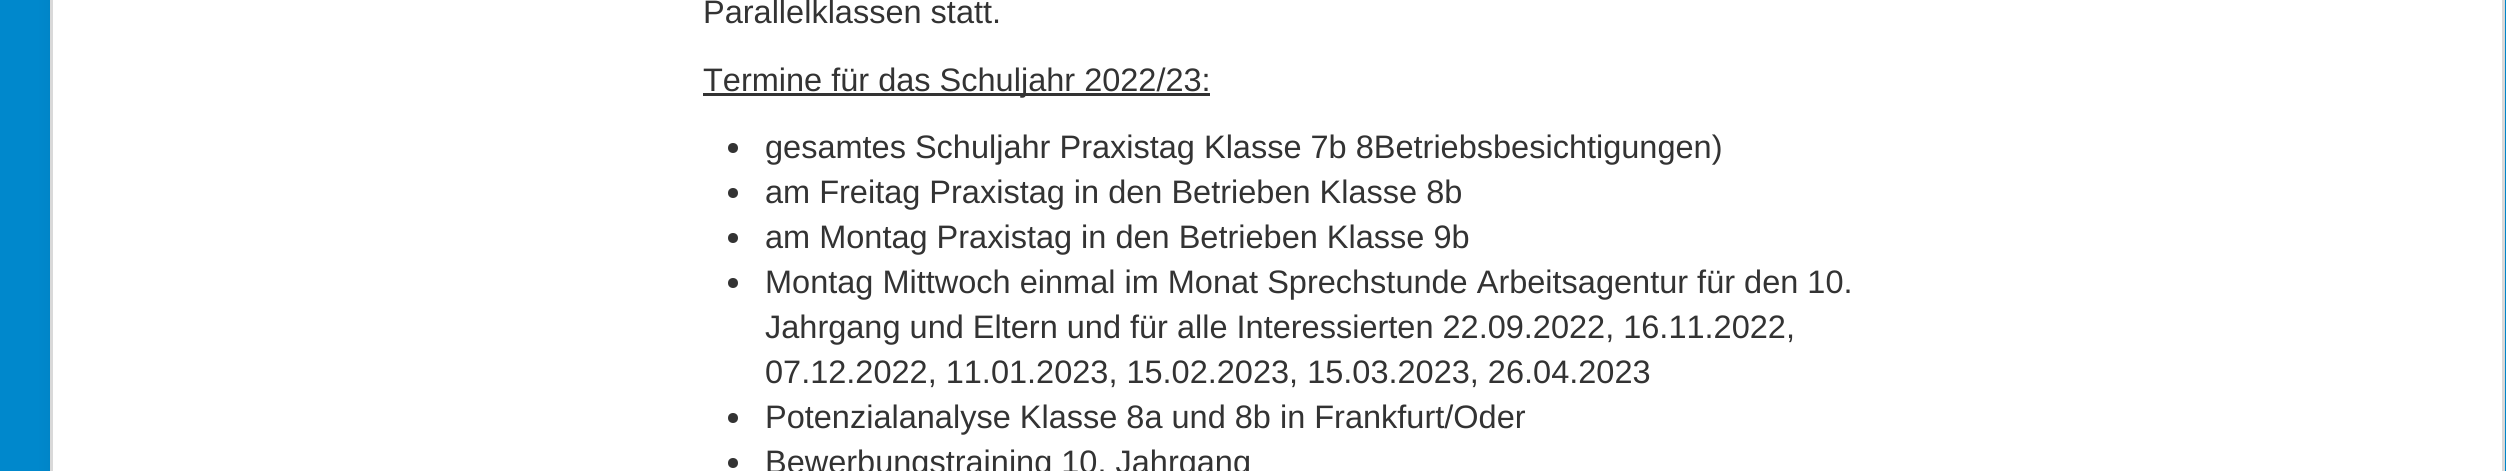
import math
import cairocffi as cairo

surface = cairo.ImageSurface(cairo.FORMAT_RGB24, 2506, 471)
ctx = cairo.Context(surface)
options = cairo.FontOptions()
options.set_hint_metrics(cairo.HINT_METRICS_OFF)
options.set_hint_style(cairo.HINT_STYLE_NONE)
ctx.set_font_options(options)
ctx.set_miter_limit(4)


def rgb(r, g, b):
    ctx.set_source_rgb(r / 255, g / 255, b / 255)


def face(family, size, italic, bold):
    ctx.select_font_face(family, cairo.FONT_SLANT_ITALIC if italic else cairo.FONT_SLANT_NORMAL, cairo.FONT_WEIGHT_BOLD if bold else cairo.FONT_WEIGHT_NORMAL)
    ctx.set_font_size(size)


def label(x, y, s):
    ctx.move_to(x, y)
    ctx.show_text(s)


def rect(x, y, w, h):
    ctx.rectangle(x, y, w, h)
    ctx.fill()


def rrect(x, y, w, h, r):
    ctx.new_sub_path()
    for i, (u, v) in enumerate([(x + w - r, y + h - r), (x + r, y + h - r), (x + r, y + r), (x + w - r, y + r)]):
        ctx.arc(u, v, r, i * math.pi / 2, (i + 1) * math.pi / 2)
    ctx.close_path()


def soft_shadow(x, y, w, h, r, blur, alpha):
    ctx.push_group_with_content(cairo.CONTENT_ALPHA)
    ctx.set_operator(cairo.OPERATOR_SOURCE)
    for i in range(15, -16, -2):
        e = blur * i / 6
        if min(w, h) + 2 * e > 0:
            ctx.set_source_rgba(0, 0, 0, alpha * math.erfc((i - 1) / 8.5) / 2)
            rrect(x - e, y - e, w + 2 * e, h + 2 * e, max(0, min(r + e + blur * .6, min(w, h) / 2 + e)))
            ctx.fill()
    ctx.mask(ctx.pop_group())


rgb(0, 136, 204)
ctx.paint()
rgb(0, 0, 0)
soft_shadow(50, -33, 2455, 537, 10, 7.5, 0.05)
rgb(255, 255, 255)
ctx.rectangle(51.5, -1.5, 2452, 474)
ctx.fill_preserve()
rgb(217, 217, 217)
ctx.set_line_width(3)
ctx.stroke()
face('Liberation Sans', 32.5, 0, 0)
rgb(51, 51, 51)
label(703, 23, 'Parallelklassen statt.')
rect(703, 93, 507, 3)
label(703, 91, 'Termine für das Schuljahr 2022/23:')
ctx.new_path()
ctx.arc(733, 148, 5, 0, 2 * math.pi)
ctx.fill()
label(765, 158, 'gesamtes Schuljahr Praxistag Klasse 7b 8Betriebsbesichtigungen)')
ctx.new_path()
ctx.arc(733, 193, 5, 0, 2 * math.pi)
ctx.fill()
label(765, 203, 'am Freitag Praxistag in den Betrieben Klasse 8b')
ctx.new_path()
ctx.arc(733, 238, 5, 0, 2 * math.pi)
ctx.fill()
label(765, 248, 'am Montag Praxistag in den Betrieben Klasse 9b')
ctx.new_path()
ctx.arc(733, 283, 5, 0, 2 * math.pi)
ctx.fill()
label(765, 293, 'Montag Mittwoch einmal im Monat Sprechstunde Arbeitsagentur für den 10.')
label(765, 338, 'Jahrgang und Eltern und für alle Interessierten 22.09.2022, 16.11.2022,')
label(765, 383, '07.12.2022, 11.01.2023, 15.02.2023, 15.03.2023, 26.04.2023')
ctx.new_path()
ctx.arc(733, 418, 5, 0, 2 * math.pi)
ctx.fill()
label(765, 428, 'Potenzialanalyse Klasse 8a und 8b in Frankfurt/Oder')
ctx.new_path()
ctx.arc(733, 463, 5, 0, 2 * math.pi)
ctx.fill()
label(765, 473, 'Bewerbungstraining 10. Jahrgang')
surface.write_to_png('render.png')
